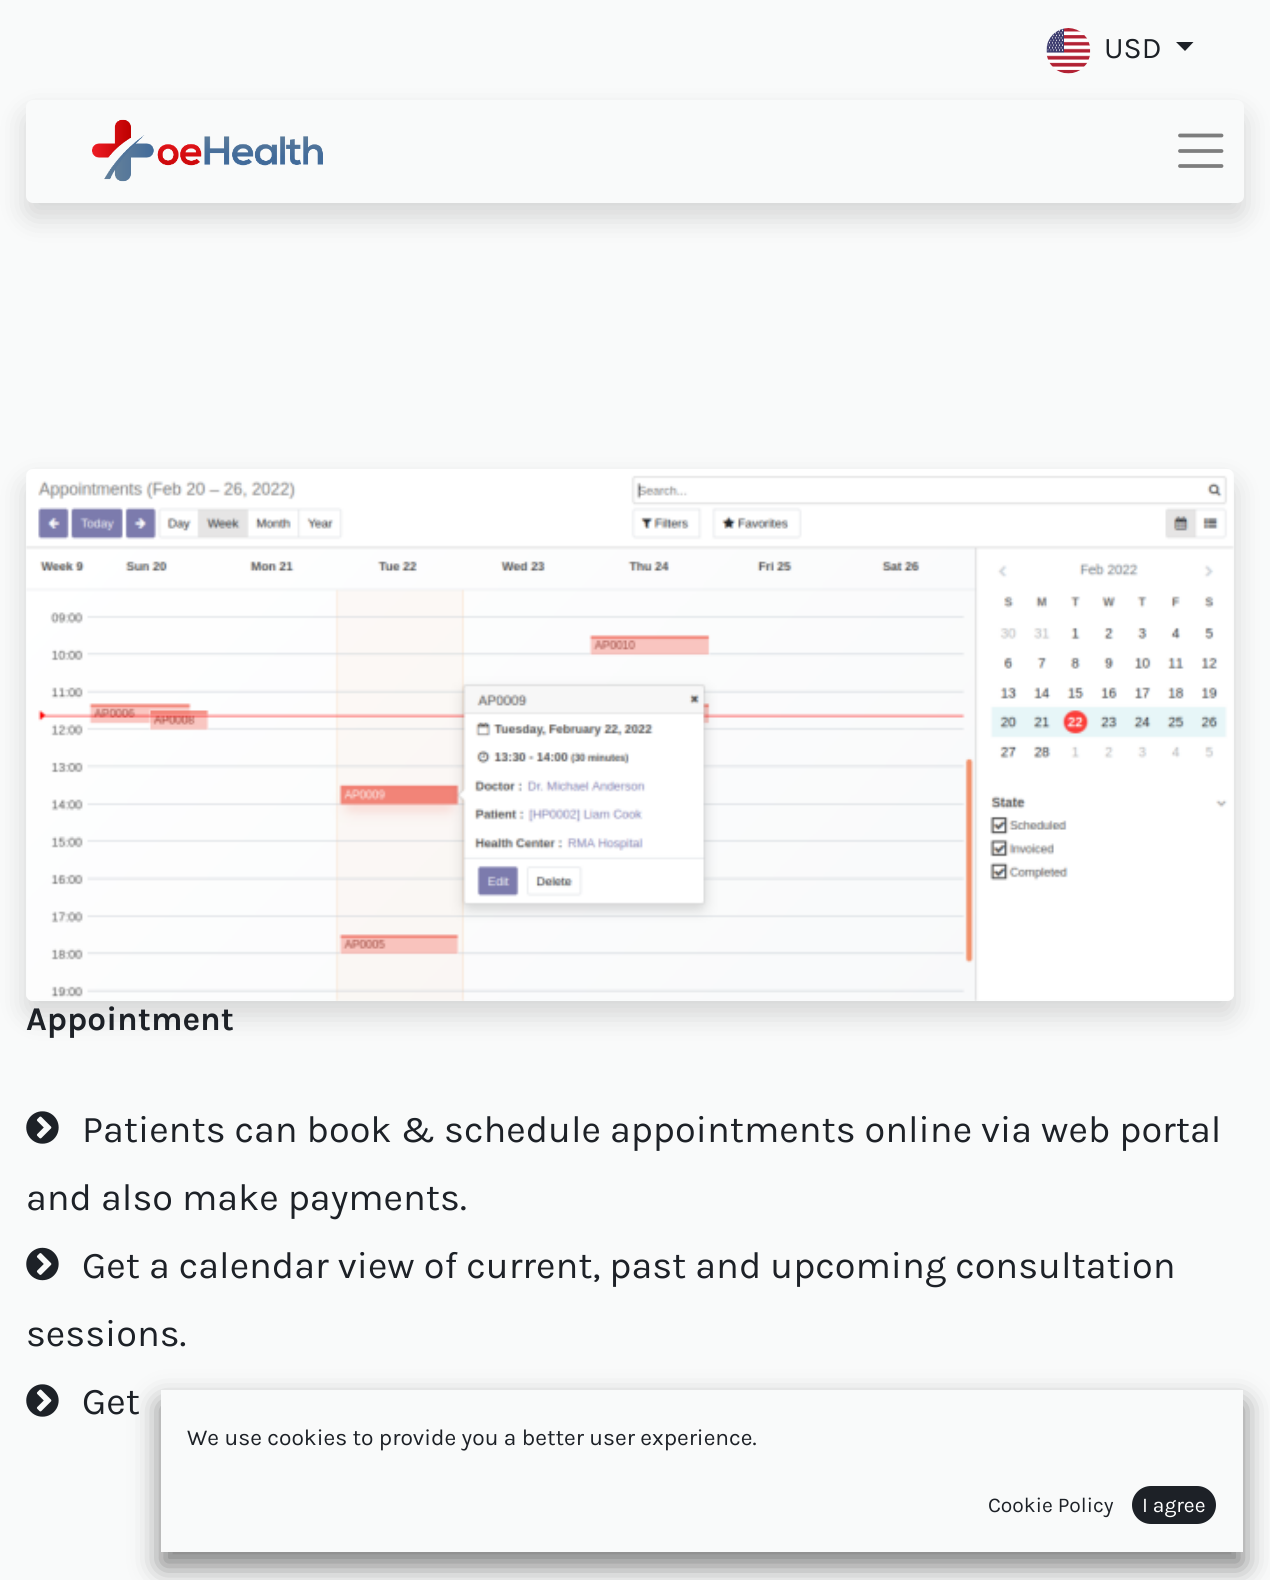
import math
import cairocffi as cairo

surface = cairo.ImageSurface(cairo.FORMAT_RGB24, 1270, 1580)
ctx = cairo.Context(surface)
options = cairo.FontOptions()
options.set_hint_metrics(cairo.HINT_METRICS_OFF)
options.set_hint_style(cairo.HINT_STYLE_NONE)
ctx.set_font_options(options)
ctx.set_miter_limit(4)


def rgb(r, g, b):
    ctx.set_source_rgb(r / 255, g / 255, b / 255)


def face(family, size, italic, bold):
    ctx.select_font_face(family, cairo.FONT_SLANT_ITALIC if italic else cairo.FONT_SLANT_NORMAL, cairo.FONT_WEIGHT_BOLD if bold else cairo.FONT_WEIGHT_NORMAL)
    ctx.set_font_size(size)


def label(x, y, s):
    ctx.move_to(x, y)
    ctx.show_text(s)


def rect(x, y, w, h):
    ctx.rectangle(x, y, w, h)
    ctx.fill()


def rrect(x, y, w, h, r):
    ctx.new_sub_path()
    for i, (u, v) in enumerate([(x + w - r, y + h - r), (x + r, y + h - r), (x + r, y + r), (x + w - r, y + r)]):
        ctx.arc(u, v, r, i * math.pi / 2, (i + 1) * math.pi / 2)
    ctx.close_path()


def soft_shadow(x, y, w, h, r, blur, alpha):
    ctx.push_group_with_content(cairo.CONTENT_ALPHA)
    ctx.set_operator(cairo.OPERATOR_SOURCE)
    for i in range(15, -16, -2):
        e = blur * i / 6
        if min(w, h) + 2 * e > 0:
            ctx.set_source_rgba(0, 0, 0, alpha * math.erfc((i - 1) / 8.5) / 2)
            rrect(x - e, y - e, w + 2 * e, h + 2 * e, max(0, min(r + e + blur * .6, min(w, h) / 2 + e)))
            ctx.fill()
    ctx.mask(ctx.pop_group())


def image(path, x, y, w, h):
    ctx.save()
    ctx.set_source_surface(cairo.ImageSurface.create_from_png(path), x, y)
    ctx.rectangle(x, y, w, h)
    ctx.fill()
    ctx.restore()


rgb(249, 250, 250)
ctx.paint()
image('image0.png', 1046, 28, 45, 46)
face('Karla', 30, 0, 0)
rgb(29, 33, 39)
label(1104, 58, 'USD')
ctx.new_path()
ctx.move_to(1176, 42)
ctx.line_to(1193.5, 42)
ctx.line_to(1185, 51)
ctx.close_path()
ctx.fill()
rgb(0, 0, 0)
soft_shadow(26, 114, 1218, 103, 7, 14, 0.15)
rgb(249, 250, 250)
rrect(26, 100, 1218, 103, 7)
ctx.fill()
image('image1.png', 92, 119, 231, 63)
ctx.new_path()
ctx.move_to(1180, 135.5)
ctx.line_to(1221.5, 135.5)
ctx.move_to(1180, 151)
ctx.line_to(1221.5, 151)
ctx.move_to(1180, 166)
ctx.line_to(1221.5, 166)
rgb(125, 125, 125)
ctx.set_line_width(3.8)
ctx.set_line_cap(cairo.LINE_CAP_ROUND)
ctx.stroke()
ctx.save()
ctx.set_fill_rule(cairo.FILL_RULE_EVEN_ODD)
ctx.new_path()
ctx.move_to(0, 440)
ctx.line_to(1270, 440)
ctx.line_to(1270, 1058)
ctx.line_to(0, 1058)
ctx.close_path()
ctx.move_to(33, 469)
ctx.line_to(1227, 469)
ctx.curve_to(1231, 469, 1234, 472, 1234, 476)
ctx.line_to(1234, 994)
ctx.curve_to(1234, 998, 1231, 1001, 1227, 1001)
ctx.line_to(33, 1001)
ctx.curve_to(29, 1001, 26, 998, 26, 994)
ctx.line_to(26, 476)
ctx.curve_to(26, 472, 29, 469, 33, 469)
ctx.close_path()
ctx.clip()
rgb(0, 0, 0)
soft_shadow(26, 483, 1208, 532, 7, 14, 0.15)
ctx.restore()
image('image2.png', 26, 469, 1208, 532)
face('Karla', 33.25, 0, 1)
rgb(29, 33, 39)
label(26, 1030, 'Appointment')
image('image3.png', 26, 1111, 33, 33)
face('Karla', 37.8, 0, 0)
label(82, 1142, 'Patients can book & schedule appointments online via web portal')
label(26, 1210, 'and also make payments.')
image('image4.png', 26, 1247, 33, 34)
label(82, 1278, 'Get a calendar view of current, past and upcoming consultation')
label(26, 1346, 'sessions.')
image('image3.png', 26, 1384, 33, 33)
label(82, 1414, 'Get')
rgb(0, 0, 0)
soft_shadow(161, 1404, 1082, 162, 0, 14, 0.5)
rgb(249, 250, 250)
rect(161, 1390, 1082, 162)
face('Karla', 22.75, 0, 0)
rgb(29, 33, 39)
label(187, 1445, 'We use cookies to provide you a better user experience.')
face('Karla', 21, 0, 0)
label(988, 1512, 'Cookie Policy')
rrect(1133, 1487, 82, 36, 18)
ctx.fill_preserve()
ctx.set_line_width(2)
ctx.set_line_cap(cairo.LINE_CAP_BUTT)
ctx.stroke()
rgb(255, 255, 255)
label(1142, 1512, 'I agree')
surface.write_to_png('render.png')
